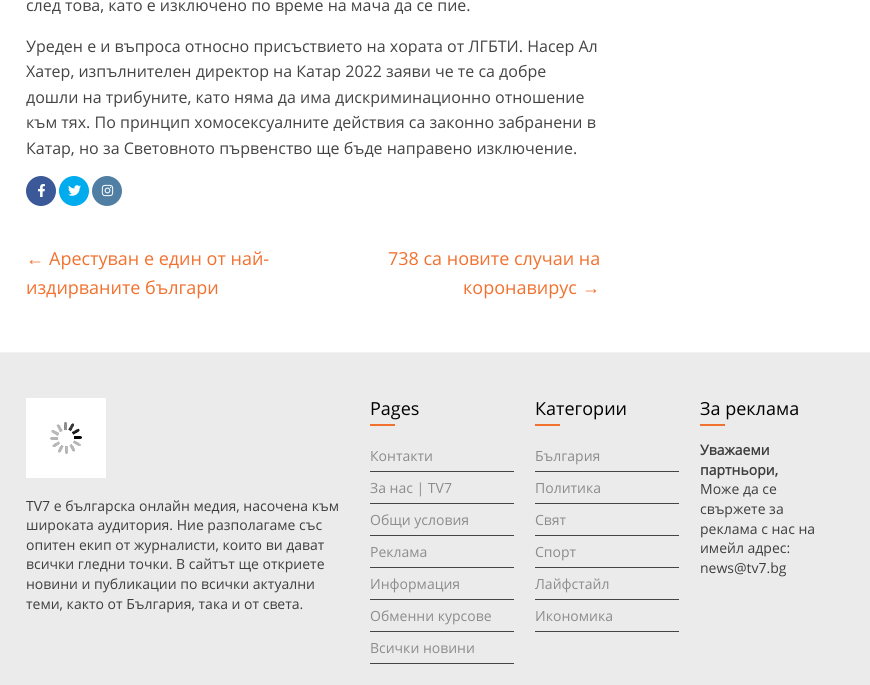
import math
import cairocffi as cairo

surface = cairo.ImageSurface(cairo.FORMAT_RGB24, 870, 685)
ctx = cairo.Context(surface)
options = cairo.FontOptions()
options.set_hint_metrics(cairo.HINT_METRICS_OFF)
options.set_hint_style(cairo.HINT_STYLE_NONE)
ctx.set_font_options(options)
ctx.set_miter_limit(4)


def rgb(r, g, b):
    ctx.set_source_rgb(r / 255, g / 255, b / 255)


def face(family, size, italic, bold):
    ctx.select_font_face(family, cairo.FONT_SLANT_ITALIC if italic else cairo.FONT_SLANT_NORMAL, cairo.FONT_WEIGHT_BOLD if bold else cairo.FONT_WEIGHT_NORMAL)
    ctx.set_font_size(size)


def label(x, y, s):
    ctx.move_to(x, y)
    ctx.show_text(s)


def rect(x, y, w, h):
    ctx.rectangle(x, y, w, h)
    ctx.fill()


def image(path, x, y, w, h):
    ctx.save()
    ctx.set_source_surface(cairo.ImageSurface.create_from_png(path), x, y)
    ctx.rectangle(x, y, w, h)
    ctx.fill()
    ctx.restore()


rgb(255, 255, 255)
ctx.paint()
face('Open Sans', 16, 0, 0)
rgb(68, 68, 68)
label(26, 11, 'след това, като е изключено по време на мача да се пие.')
label(26, 52, 'Уреден е и въпроса относно присъствието на хората от ЛГБТИ. Насер Ал')
label(26, 77, 'Хатер, изпълнителен директор на Катар 2022 заяви че те са добре')
label(26, 103, 'дошли на трибуните, като няма да има дискриминационно отношение')
label(26, 128, 'към тях. По принцип хомосексуалните действия са законно забранени в')
label(26, 154, 'Катар, но за Световното първенство ще бъде направено изключение.')
rgb(59, 89, 152)
ctx.new_path()
ctx.arc(41, 191, 15, 0, 2 * math.pi)
ctx.fill()
image('image0.png', 38, 184, 7, 13)
rgb(0, 172, 237)
ctx.arc(74, 191, 15, 0, 2 * math.pi)
ctx.fill()
image('image1.png', 68, 185, 13, 11)
rgb(81, 127, 164)
ctx.arc(107, 191, 15, 0, 2 * math.pi)
ctx.fill()
image('image2.png', 101, 184, 13, 13)
face('Liberation Serif', 18, 0, 0)
rgb(242, 113, 47)
label(26, 265, '←')
face('Open Sans', 18, 0, 0)
label(49, 265, 'Арестуван е един от най-')
label(26, 294, 'издирваните българи')
label(388, 265, '738 са новите случаи на')
label(463, 294, 'коронавирус')
face('Liberation Serif', 18, 0, 0)
label(582, 294, '→')
rgb(235, 235, 235)
rect(0, 353, 870, 332)
rgb(242, 242, 242)
rect(0, 352, 870, 1)
rgb(255, 255, 255)
rect(26, 398, 80, 80)
image('image3.png', 50, 422, 32, 32)
face('Open Sans', 14, 0, 0)
rgb(62, 62, 62)
label(26, 511, 'TV7 е българска онлайн медия, насочена към')
label(26, 530, 'широката аудитория. Ние разполагаме със')
label(26, 550, 'опитен екип от журналисти, които ви дават')
label(26, 569, 'всички гледни точки. В сайтът ще откриете')
label(26, 589, 'новини и публикации по всички актуални')
label(26, 609, 'теми, както от България, така и от света.')
face('Open Sans', 18, 0, 0)
rgb(0, 0, 0)
label(370, 415, 'Pages')
rgb(242, 113, 47)
rect(370, 424, 25, 2)
rgb(68, 68, 68)
rect(370, 471, 144, 1)
face('Open Sans', 14, 0, 0)
rgb(140, 140, 140)
label(370, 461, 'Контакти')
rgb(68, 68, 68)
rect(370, 503, 144, 1)
rgb(140, 140, 140)
label(370, 493, 'За нас | TV7')
rgb(68, 68, 68)
rect(370, 535, 144, 1)
rgb(140, 140, 140)
label(370, 525, 'Общи условия')
rgb(68, 68, 68)
rect(370, 567, 144, 1)
rgb(140, 140, 140)
label(370, 557, 'Реклама')
rgb(68, 68, 68)
rect(370, 599, 144, 1)
rgb(140, 140, 140)
label(370, 589, 'Информация')
rgb(68, 68, 68)
rect(370, 631, 144, 1)
rgb(140, 140, 140)
label(370, 621, 'Oбменни курсове')
rgb(68, 68, 68)
rect(370, 663, 144, 1)
rgb(140, 140, 140)
label(370, 653, 'Всички новини')
face('Open Sans', 18, 0, 0)
rgb(0, 0, 0)
label(535, 415, 'Категории')
rgb(242, 113, 47)
rect(535, 424, 25, 2)
rgb(68, 68, 68)
rect(535, 471, 144, 1)
face('Open Sans', 14, 0, 0)
rgb(140, 140, 140)
label(535, 461, 'България')
rgb(68, 68, 68)
rect(535, 503, 144, 1)
rgb(140, 140, 140)
label(535, 493, 'Политика')
rgb(68, 68, 68)
rect(535, 535, 144, 1)
rgb(140, 140, 140)
label(535, 525, 'Свят')
rgb(68, 68, 68)
rect(535, 567, 144, 1)
rgb(140, 140, 140)
label(535, 557, 'Спорт')
rgb(68, 68, 68)
rect(535, 599, 144, 1)
rgb(140, 140, 140)
label(535, 589, 'Лайфстайл')
rgb(68, 68, 68)
rect(535, 631, 144, 1)
rgb(140, 140, 140)
label(535, 621, 'Икономика')
face('Open Sans', 18, 0, 0)
rgb(0, 0, 0)
label(700, 415, 'За реклама')
rgb(242, 113, 47)
rect(700, 424, 25, 2)
face('Open Sans', 14, 0, 1)
rgb(62, 62, 62)
label(700, 455, 'Уважаеми')
label(700, 475, 'партньори,')
face('Open Sans', 14, 0, 0)
label(700, 494, 'Може да се')
label(700, 514, 'свържете за')
label(700, 534, 'реклама с нас на')
label(700, 553, 'имейл адрес:')
label(700, 573, 'news@tv7.bg')
surface.write_to_png('render.png')
